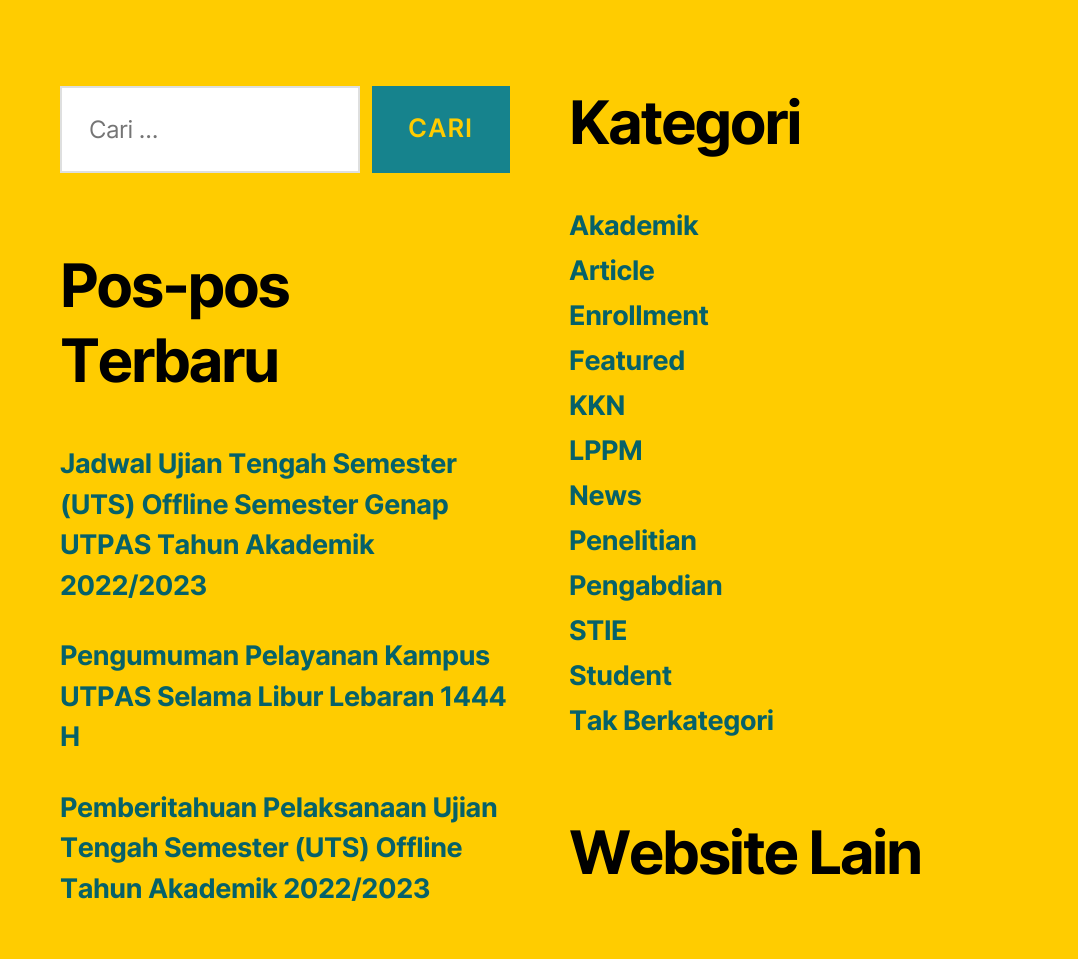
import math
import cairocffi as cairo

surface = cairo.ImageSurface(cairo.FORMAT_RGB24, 1078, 959)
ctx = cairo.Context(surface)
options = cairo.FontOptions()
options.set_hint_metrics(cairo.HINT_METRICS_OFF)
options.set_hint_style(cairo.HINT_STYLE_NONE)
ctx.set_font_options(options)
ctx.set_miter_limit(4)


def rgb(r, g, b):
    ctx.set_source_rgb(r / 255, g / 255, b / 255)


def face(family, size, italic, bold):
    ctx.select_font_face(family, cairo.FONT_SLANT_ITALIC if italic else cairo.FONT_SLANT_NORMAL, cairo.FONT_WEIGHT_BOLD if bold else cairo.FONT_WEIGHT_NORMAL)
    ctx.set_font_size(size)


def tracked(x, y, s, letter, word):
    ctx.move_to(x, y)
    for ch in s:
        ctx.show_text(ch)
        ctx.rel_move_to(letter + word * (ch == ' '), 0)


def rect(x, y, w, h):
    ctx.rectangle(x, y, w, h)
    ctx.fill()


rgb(255, 204, 0)
ctx.paint()
rgb(255, 255, 255)
ctx.rectangle(61, 87, 298, 85)
ctx.fill_preserve()
rgb(222, 223, 223)
ctx.stroke()
face('Inter', 24, 0, 0)
rgb(117, 117, 117)
tracked(89, 138, 'Cari …', -0.5, 0)
rgb(22, 131, 141)
rect(372, 86, 138, 87)
face('Inter SemiBold', 25.5, 0, 0)
rgb(255, 204, 0)
tracked(408, 137, 'CARI', 1, 0)
face('Inter', 60, 0, 1)
rgb(0, 0, 0)
tracked(60, 307, 'Pos-pos', -2.5, 0)
tracked(60, 382, 'Terbaru', -2.5, 0)
face('Inter', 27, 0, 1)
rgb(6, 97, 105)
tracked(60, 473, 'Jadwal Ujian Tengah Semester', -0.4, 0)
tracked(60, 514, '(UTS) Offline Semester Genap', -0.4, 0)
tracked(60, 554, 'UTPAS Tahun Akademik', -0.4, 0)
tracked(60, 595, '2022/2023', -0.4, 0)
tracked(60, 665, 'Pengumuman Pelayanan Kampus', -0.4, 0)
tracked(60, 706, 'UTPAS Selama Libur Lebaran 1444', -0.4, 0)
tracked(60, 746, 'H', -0.4, 0)
tracked(60, 817, 'Pemberitahuan Pelaksanaan Ujian', -0.4, 0)
tracked(60, 857, 'Tengah Semester (UTS) Offline', -0.4, 0)
tracked(60, 898, 'Tahun Akademik 2022/2023', -0.4, 0)
face('Inter', 60, 0, 1)
rgb(0, 0, 0)
tracked(569, 144, 'Kategori', -2.5, 0)
face('Inter', 27, 0, 1)
rgb(6, 97, 105)
tracked(569, 235, 'Akademik', -0.4, 0)
tracked(569, 280, 'Article', -0.4, 0)
tracked(569, 325, 'Enrollment', -0.4, 0)
tracked(569, 370, 'Featured', -0.4, 0)
tracked(569, 415, 'KKN', -0.4, 0)
tracked(569, 460, 'LPPM', -0.4, 0)
tracked(569, 505, 'News', -0.4, 0)
tracked(569, 550, 'Penelitian', -0.4, 0)
tracked(569, 595, 'Pengabdian', -0.4, 0)
tracked(569, 640, 'STIE', -0.4, 0)
tracked(569, 685, 'Student', -0.4, 0)
tracked(569, 730, 'Tak Berkategori', -0.4, 0)
face('Inter', 60, 0, 1)
rgb(0, 0, 0)
tracked(569, 874, 'Website Lain', -2.5, 0)
surface.write_to_png('render.png')
